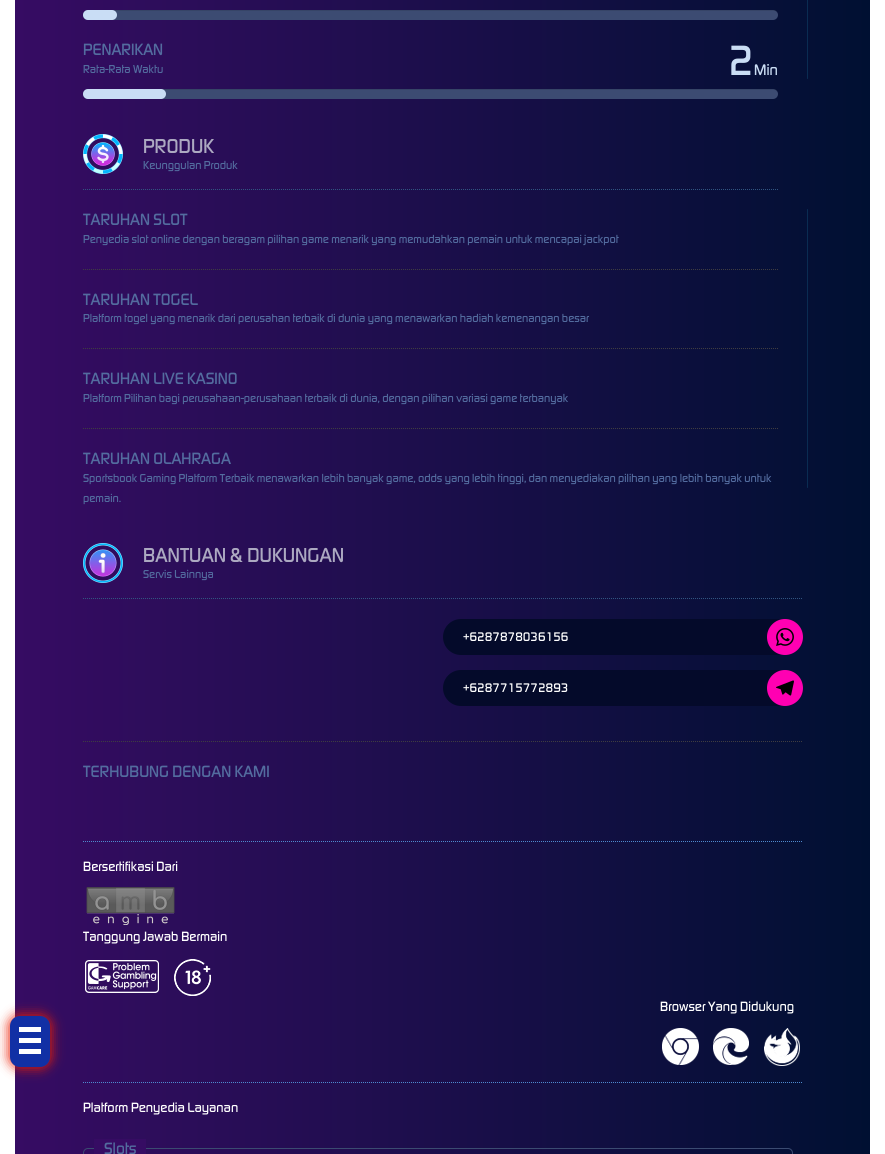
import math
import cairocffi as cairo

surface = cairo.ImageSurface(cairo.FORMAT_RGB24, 885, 1154)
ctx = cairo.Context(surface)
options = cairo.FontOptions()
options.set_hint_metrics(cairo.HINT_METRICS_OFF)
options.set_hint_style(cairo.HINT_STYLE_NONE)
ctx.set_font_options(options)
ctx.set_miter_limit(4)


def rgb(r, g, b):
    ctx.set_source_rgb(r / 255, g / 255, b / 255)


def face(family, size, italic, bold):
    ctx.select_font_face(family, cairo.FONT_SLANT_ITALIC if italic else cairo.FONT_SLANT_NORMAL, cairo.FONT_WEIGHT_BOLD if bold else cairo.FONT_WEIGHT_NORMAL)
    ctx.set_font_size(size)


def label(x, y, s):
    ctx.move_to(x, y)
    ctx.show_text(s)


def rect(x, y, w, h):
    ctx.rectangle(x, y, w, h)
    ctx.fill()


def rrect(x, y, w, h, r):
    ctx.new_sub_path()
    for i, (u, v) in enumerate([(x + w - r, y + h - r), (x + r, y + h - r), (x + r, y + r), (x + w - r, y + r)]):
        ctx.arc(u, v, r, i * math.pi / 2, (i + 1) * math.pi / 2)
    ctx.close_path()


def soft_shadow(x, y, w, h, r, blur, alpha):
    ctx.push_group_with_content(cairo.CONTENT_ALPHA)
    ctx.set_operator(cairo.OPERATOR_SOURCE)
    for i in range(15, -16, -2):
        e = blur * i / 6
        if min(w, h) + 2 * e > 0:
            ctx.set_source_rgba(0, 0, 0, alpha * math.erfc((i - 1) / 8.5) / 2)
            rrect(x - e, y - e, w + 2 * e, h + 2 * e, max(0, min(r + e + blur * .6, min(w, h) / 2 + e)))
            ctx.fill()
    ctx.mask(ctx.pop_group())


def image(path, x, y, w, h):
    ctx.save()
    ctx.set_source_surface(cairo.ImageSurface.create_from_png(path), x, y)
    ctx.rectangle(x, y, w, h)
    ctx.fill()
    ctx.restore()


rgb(255, 255, 255)
ctx.paint()
gradient = cairo.LinearGradient(15, 1020, 870, 1020)
gradient.add_color_stop_rgba(0, 0.212, 0.047, 0.388, 1)
gradient.add_color_stop_rgba(1, 0, 0.063, 0.196, 1)
ctx.set_source(gradient)
rect(15, 0, 855, 1154)
rgb(235, 29, 2)
soft_shadow(9, 1015, 42, 53, 11, 6, 1)
rgb(17, 48, 165)
rrect(10, 1016, 40, 51, 10)
ctx.fill()
rgb(255, 255, 255)
rect(19, 1027, 22, 5)
rect(19, 1038, 22, 5)
rect(19, 1049, 22, 5)
rgb(60, 75, 114)
rrect(83, 10, 695, 10, 5)
ctx.fill()
ctx.set_source_rgba(0, 0, 0, 0.1)
ctx.new_path()
ctx.move_to(88, 11)
ctx.line_to(775, 11)
ctx.curve_to(777, 12, 778, 14, 778, 16)
ctx.curve_to(778, 14, 777, 11, 775, 10)
ctx.line_to(773, 10)
ctx.line_to(88, 10)
ctx.curve_to(85, 10, 83, 13, 83, 15)
ctx.curve_to(83, 13, 85, 11, 88, 11)
ctx.close_path()
ctx.fill()
rgb(201, 221, 245)
rrect(83, 10, 34, 10, 5)
ctx.fill()
face('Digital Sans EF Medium', 17, 0, 0)
rgb(83, 108, 159)
label(83, 55, 'PENARIKAN')
rgb(60, 75, 114)
rrect(83, 89, 695, 10, 5)
ctx.fill()
ctx.set_source_rgba(0, 0, 0, 0.1)
ctx.new_path()
ctx.move_to(88, 90)
ctx.line_to(775, 90)
ctx.curve_to(777, 91, 778, 93, 778, 95)
ctx.curve_to(778, 93, 777, 90, 775, 89)
ctx.line_to(773, 89)
ctx.line_to(88, 89)
ctx.curve_to(85, 89, 83, 92, 83, 94)
ctx.curve_to(83, 92, 85, 90, 88, 90)
ctx.close_path()
ctx.fill()
face('Digital Sans EF Medium', 44, 0, 0)
rgb(202, 221, 244)
label(728, 75, '2')
face('Digital Sans EF Medium', 16, 0, 0)
label(754, 75, 'Min')
rgb(201, 221, 245)
rrect(83, 89, 83, 10, 5)
ctx.fill()
face('Digital Sans EF Medium', 12, 0, 0)
rgb(83, 108, 159)
label(83, 73, 'Rata-Rata Waktu')
rgb(10, 44, 82)
rrect(807, -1, 1, 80, 0.5)
ctx.fill()
ctx.new_path()
ctx.move_to(83, 189.5)
ctx.line_to(778, 189.5)
rgb(49, 85, 129)
ctx.set_line_width(1)
ctx.set_dash([1, 1])
ctx.stroke()
image('image0.png', 83, 134, 40, 40)
face('Digital Sans EF Medium', 21, 0, 0)
rgb(172, 169, 193)
label(143, 153, 'PRODUK')
face('Digital Sans EF Medium', 12, 0, 0)
rgb(83, 108, 159)
label(143, 169, 'Keunggulan Produk')
face('Digital Sans EF Medium', 17, 0, 0)
label(83, 225, 'TARUHAN SLOT')
face('Digital Sans EF Medium', 12, 0, 0)
label(83, 243, 'Penyedia slot online dengan beragam pilihan game menarik yang memudahkan pemain untuk mencapai jackpot')
ctx.new_path()
ctx.move_to(83, 269.5)
ctx.line_to(778, 269.5)
rgb(63, 61, 65)
ctx.stroke()
face('Digital Sans EF Medium', 17, 0, 0)
rgb(83, 108, 159)
label(83, 305, 'TARUHAN TOGEL')
face('Digital Sans EF Medium', 12, 0, 0)
label(83, 322, 'Platform togel yang menarik dari perusahan terbaik di dunia yang menawarkan hadiah kemenangan besar')
ctx.new_path()
ctx.move_to(83, 348.5)
ctx.line_to(778, 348.5)
rgb(63, 61, 65)
ctx.stroke()
face('Digital Sans EF Medium', 17, 0, 0)
rgb(83, 108, 159)
label(83, 384, 'TARUHAN LIVE KASINO')
face('Digital Sans EF Medium', 12, 0, 0)
label(83, 402, 'Platform Pilihan bagi perusahaan-perusahaan terbaik di dunia, dengan pilihan variasi game terbanyak')
ctx.new_path()
ctx.move_to(83, 428.5)
ctx.line_to(778, 428.5)
rgb(63, 61, 65)
ctx.stroke()
face('Digital Sans EF Medium', 17, 0, 0)
rgb(83, 108, 159)
label(83, 464, 'TARUHAN OLAHRAGA')
face('Digital Sans EF Medium', 12, 0, 0)
label(83, 482, 'Sportsbook Gaming Platform Terbaik menawarkan lebih banyak game, odds yang lebih tinggi, dan menyediakan pilihan yang lebih banyak untuk')
label(83, 502, 'pemain.')
rgb(10, 44, 82)
rrect(807, 209, 1, 279, 0.5)
ctx.fill()
ctx.new_path()
ctx.move_to(83, 598.5)
ctx.line_to(803, 598.5)
rgb(49, 85, 129)
ctx.stroke()
image('image1.png', 83, 543, 40, 40)
face('Digital Sans EF Medium', 21, 0, 0)
rgb(172, 169, 193)
label(143, 562, 'BANTUAN & DUKUNGAN')
face('Digital Sans EF Medium', 12, 0, 0)
rgb(83, 108, 159)
label(143, 578, 'Servis Lainnya')
rgb(4, 10, 42)
rrect(443, 619, 360, 36, 18)
ctx.fill()
face('Digital Sans EF Medium', 13, 0, 0)
rgb(255, 255, 255)
label(463, 641, '+6287878036156')
rgb(255, 0, 178)
ctx.new_path()
ctx.arc(785, 637, 18, 0, 2 * math.pi)
ctx.fill()
image('image2.png', 776, 628, 18, 18)
rgb(4, 10, 42)
rrect(443, 670, 360, 36, 18)
ctx.fill()
rgb(255, 255, 255)
label(463, 692, '+6287715772893')
rgb(255, 0, 178)
ctx.new_path()
ctx.arc(785, 688, 18, 0, 2 * math.pi)
ctx.fill()
image('image3.png', 776, 680, 18, 16)
ctx.new_path()
ctx.move_to(83, 741.5)
ctx.line_to(803, 741.5)
rgb(63, 61, 65)
ctx.stroke()
face('Digital Sans EF Medium', 17, 0, 0)
rgb(83, 108, 159)
label(83, 777, 'TERHUBUNG DENGAN KAMI')
ctx.new_path()
ctx.move_to(83, 841.5)
ctx.line_to(803, 841.5)
rgb(79, 138, 207)
ctx.stroke()
face('Digital Sans EF Medium', 14, 0, 0)
rgb(255, 255, 255)
label(83, 871, 'Bersertifikasi Dari')
image('image4.png', 86, 887, 89, 38)
label(83, 941, 'Tanggung Jawab Bermain')
image('image5.png', 85, 960, 74, 33)
image('image6.png', 174, 959, 37, 37)
label(660, 1011, 'Browser Yang Didukung')
image('image7.png', 662, 1028, 37, 37)
image('image8.png', 713, 1028, 36, 37)
image('image9.png', 764, 1028, 36, 38)
ctx.new_path()
ctx.move_to(83, 1082.5)
ctx.line_to(803, 1082.5)
rgb(79, 138, 207)
ctx.stroke()
rgb(255, 255, 255)
label(83, 1112, 'Platform Penyedia Layanan')
rrect(83.5, 1148.5, 709, 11, 4.5)
rgb(59, 75, 113)
ctx.set_dash([])
ctx.stroke()
rgb(54, 12, 99)
rect(94, 1139, 52, 15)
face('Digital Sans EF Medium', 17, 0, 0)
rgb(83, 108, 159)
label(104, 1154, 'Slots')
surface.write_to_png('render.png')
